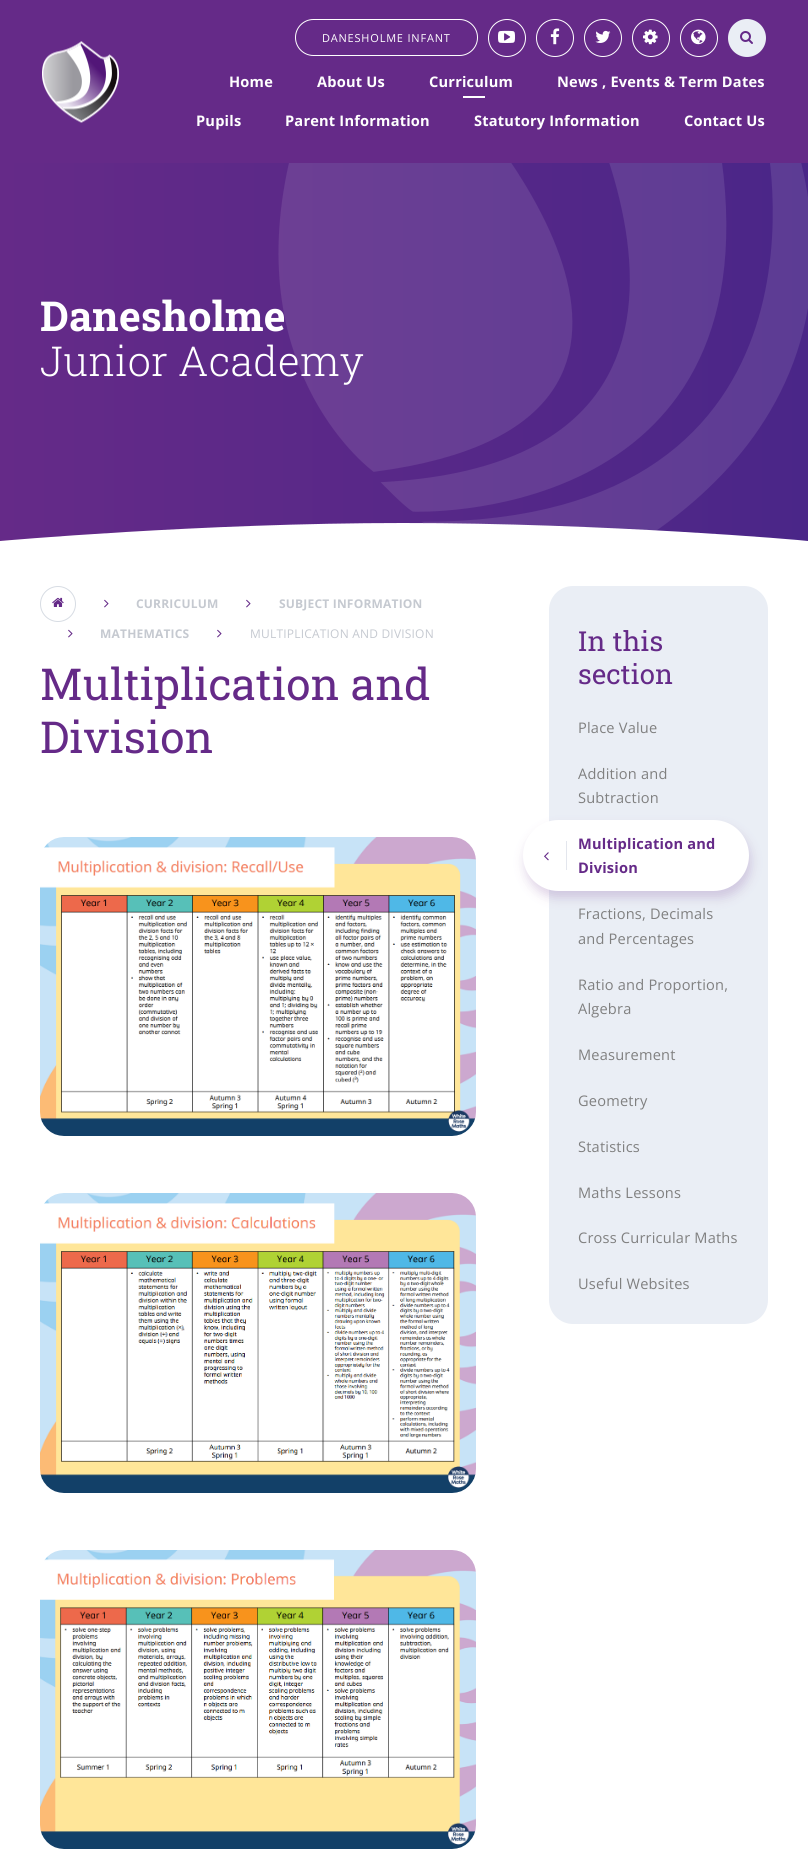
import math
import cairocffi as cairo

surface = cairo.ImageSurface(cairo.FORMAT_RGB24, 808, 1868)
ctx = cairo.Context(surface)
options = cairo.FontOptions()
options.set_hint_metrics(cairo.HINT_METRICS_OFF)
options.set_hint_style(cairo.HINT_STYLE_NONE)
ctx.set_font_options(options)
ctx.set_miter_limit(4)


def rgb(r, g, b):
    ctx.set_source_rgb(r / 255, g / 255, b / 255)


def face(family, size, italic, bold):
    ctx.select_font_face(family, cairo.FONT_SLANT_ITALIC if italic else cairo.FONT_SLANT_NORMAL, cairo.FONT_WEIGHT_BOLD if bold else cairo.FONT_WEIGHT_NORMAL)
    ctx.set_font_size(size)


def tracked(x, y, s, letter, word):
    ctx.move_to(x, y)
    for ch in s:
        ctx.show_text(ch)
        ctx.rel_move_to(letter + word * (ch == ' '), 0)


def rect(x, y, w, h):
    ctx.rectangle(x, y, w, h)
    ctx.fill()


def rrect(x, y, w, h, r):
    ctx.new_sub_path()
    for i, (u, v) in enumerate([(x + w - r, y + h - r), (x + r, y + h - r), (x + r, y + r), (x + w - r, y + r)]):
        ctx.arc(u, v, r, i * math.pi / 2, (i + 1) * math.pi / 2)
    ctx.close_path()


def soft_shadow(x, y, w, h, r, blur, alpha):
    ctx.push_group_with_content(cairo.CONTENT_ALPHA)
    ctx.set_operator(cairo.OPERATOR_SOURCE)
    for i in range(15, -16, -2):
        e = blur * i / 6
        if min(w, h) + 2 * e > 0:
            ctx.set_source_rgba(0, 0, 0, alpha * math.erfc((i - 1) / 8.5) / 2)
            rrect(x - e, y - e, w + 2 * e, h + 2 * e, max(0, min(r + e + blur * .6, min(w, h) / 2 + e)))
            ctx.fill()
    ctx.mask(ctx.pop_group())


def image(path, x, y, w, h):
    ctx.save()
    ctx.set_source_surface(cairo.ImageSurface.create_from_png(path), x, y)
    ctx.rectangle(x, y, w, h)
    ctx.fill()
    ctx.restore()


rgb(255, 255, 255)
ctx.paint()
rgb(101, 42, 136)
rect(0, 0, 808, 163)
image('image0.png', 42, 41, 77, 82)
rrect(295.5, 19.5, 182, 36, 18)
rgb(255, 255, 255)
ctx.set_line_width(1)
ctx.stroke()
face('Open Sans', 11, 0, 0)
tracked(322, 42, 'DANESHOLME INFANT', 0.8, 0)
ctx.new_path()
ctx.arc(507, 38, 18.5, 0, 2 * math.pi)
ctx.stroke()
image('image1.png', 498, 30, 17, 13)
ctx.arc(555, 38, 18.5, 0, 2 * math.pi)
ctx.stroke()
image('image2.png', 550, 28, 10, 17)
ctx.arc(603, 38, 18.5, 0, 2 * math.pi)
ctx.stroke()
image('image3.png', 595, 30, 16, 13)
ctx.arc(651, 38, 18.5, 0, 2 * math.pi)
ctx.stroke()
image('image4.png', 643, 29, 15, 16)
ctx.arc(699, 38, 18.5, 0, 2 * math.pi)
ctx.stroke()
image('image5.png', 691, 29, 15, 16)
rgb(234, 238, 245)
ctx.arc(747, 38, 19, 0, 2 * math.pi)
ctx.fill()
image('image6.png', 740, 31, 13, 13)
face('Open Sans', 14.6, 0, 1)
rgb(255, 255, 255)
tracked(229, 87, 'Home', 0.2, 0)
tracked(317, 87, 'About Us', 0.2, 0)
tracked(429, 87, 'Curriculum', 0.2, 0)
rect(463, 96, 22, 2)
tracked(557, 87, 'News , Events & Term Dates', 0.2, 0)
tracked(196, 126, 'Pupils', 0.2, 0)
tracked(285, 126, 'Parent Information', 0.2, 0)
tracked(474, 126, 'Statutory Information', 0.2, 0)
tracked(684, 126, 'Contact Us', 0.2, 0)
gradient = cairo.LinearGradient(0, 354, 808, 354)
gradient.add_color_stop_rgba(0, 0.396, 0.165, 0.533, 1)
gradient.add_color_stop_rgba(1, 0.29, 0.149, 0.533, 1)
ctx.set_source(gradient)
rect(0, 163, 808, 378)
face('Roboto Slab', 41.25, 0, 1)
rgb(255, 255, 255)
tracked(40, 331, 'Danesholme', 0.2, 0)
face('Roboto Slab Light', 41.25, 0, 0)
tracked(40, 376, 'Junior Academy', 0.2, 0)
image('image7.png', 278, 163, 530, 368)
ctx.new_path()
ctx.move_to(808, 541)
ctx.curve_to(802, 540, 603, 523, 403, 523)
ctx.curve_to(201, 523, 0, 541, 0, 541)
ctx.line_to(0, 546)
ctx.line_to(808, 546)
ctx.close_path()
ctx.fill()
ctx.arc(58, 604, 17.5, 0, 2 * math.pi)
rgb(215, 220, 227)
ctx.stroke()
image('image8.png', 52, 597, 12, 10)
image('image9.png', 104, 599, 5, 9)
face('Open Sans', 12, 0, 1)
rgb(197, 201, 208)
tracked(136, 608, 'CURRICULUM', 0.2, 0)
image('image9.png', 246, 599, 5, 9)
tracked(279, 608, 'SUBJECT INFORMATION', 0.2, 0)
image('image9.png', 68, 629, 5, 9)
tracked(100, 638, 'MATHEMATICS', 0.2, 0)
image('image9.png', 217, 629, 5, 9)
face('Open Sans', 12, 0, 0)
tracked(250, 638, 'MULTIPLICATION AND DIVISION', 0.2, 0)
face('Roboto Slab', 44, 0, 0)
rgb(101, 42, 136)
tracked(40, 700, 'Multiplication and', 0.2, 0)
tracked(40, 753, 'Division', 0.2, 0)
image('image10.png', 40, 837, 436, 299)
image('image11.png', 40, 1193, 436, 300)
image('image12.png', 40, 1550, 436, 299)
rgb(234, 238, 245)
rrect(549, 586, 219, 738, 24)
ctx.fill()
face('Roboto Slab', 27.5, 0, 0)
rgb(101, 42, 136)
tracked(578, 651, 'In this', 0.2, 0)
tracked(578, 684, 'section', 0.2, 0)
face('Open Sans', 14.6, 0, 0)
rgb(128, 128, 128)
tracked(578, 733, 'Place Value', 0.2, 0)
tracked(578, 779, 'Addition and', 0.2, 0)
tracked(578, 803, 'Subtraction', 0.2, 0)
rgb(101, 42, 136)
soft_shadow(525, 827, 226, 71, 35.5, 5.5, 0.2)
rgb(255, 255, 255)
rrect(523, 820, 226, 71, 35.5)
ctx.fill()
image('image13.png', 544, 852, 5, 9)
rgb(227, 230, 237)
rect(566, 841, 1, 29)
face('Open Sans', 14.6, 0, 1)
rgb(101, 42, 136)
tracked(578, 849, 'Multiplication and', 0.2, 0)
tracked(578, 873, 'Division', 0.2, 0)
face('Open Sans', 14.6, 0, 0)
rgb(128, 128, 128)
tracked(578, 919, 'Fractions, Decimals', 0.2, 0)
tracked(578, 944, 'and Percentages', 0.2, 0)
tracked(578, 990, 'Ratio and Proportion,', 0.2, 0)
tracked(578, 1014, 'Algebra', 0.2, 0)
tracked(578, 1060, 'Measurement', 0.2, 0)
tracked(578, 1106, 'Geometry', 0.2, 0)
tracked(578, 1152, 'Statistics', 0.2, 0)
tracked(578, 1198, 'Maths Lessons', 0.2, 0)
tracked(578, 1243, 'Cross Curricular Maths', 0.2, 0)
tracked(578, 1289, 'Useful Websites', 0.2, 0)
surface.write_to_png('render.png')
